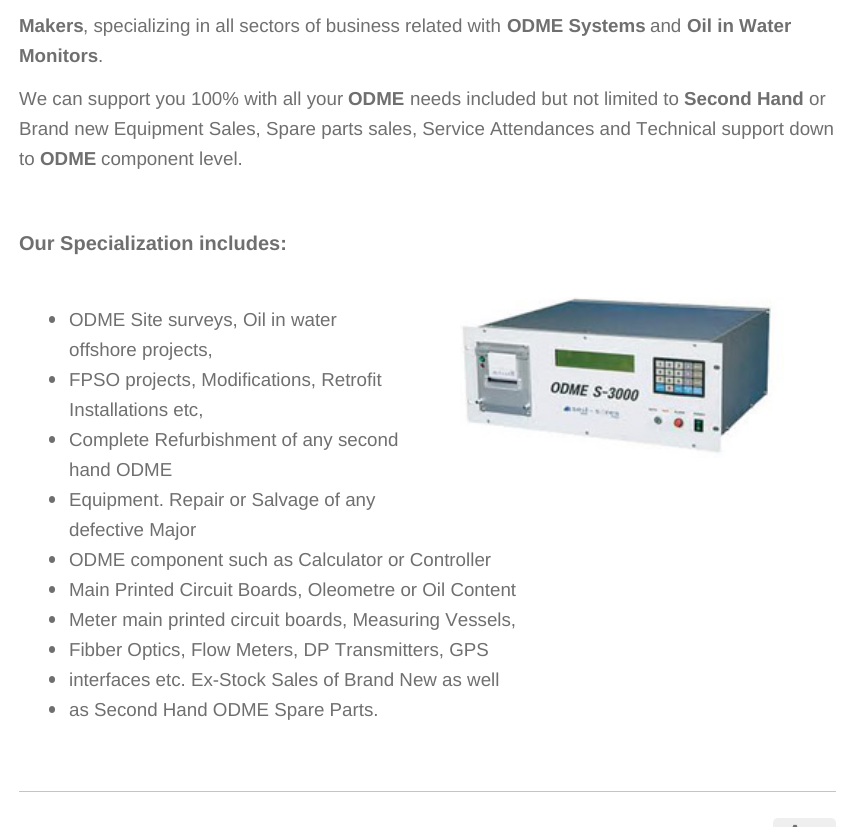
import math
import cairocffi as cairo

surface = cairo.ImageSurface(cairo.FORMAT_RGB24, 854, 827)
ctx = cairo.Context(surface)
options = cairo.FontOptions()
options.set_hint_metrics(cairo.HINT_METRICS_OFF)
options.set_hint_style(cairo.HINT_STYLE_NONE)
ctx.set_font_options(options)
ctx.set_miter_limit(4)


def rgb(r, g, b):
    ctx.set_source_rgb(r / 255, g / 255, b / 255)


def face(family, size, italic, bold):
    ctx.select_font_face(family, cairo.FONT_SLANT_ITALIC if italic else cairo.FONT_SLANT_NORMAL, cairo.FONT_WEIGHT_BOLD if bold else cairo.FONT_WEIGHT_NORMAL)
    ctx.set_font_size(size)


def label(x, y, s):
    ctx.move_to(x, y)
    ctx.show_text(s)


def rect(x, y, w, h):
    ctx.rectangle(x, y, w, h)
    ctx.fill()


def rrect(x, y, w, h, r):
    ctx.new_sub_path()
    for i, (u, v) in enumerate([(x + w - r, y + h - r), (x + r, y + h - r), (x + r, y + r), (x + w - r, y + r)]):
        ctx.arc(u, v, r, i * math.pi / 2, (i + 1) * math.pi / 2)
    ctx.close_path()


def image(path, x, y, w, h):
    ctx.save()
    ctx.set_source_surface(cairo.ImageSurface.create_from_png(path), x, y)
    ctx.rectangle(x, y, w, h)
    ctx.fill()
    ctx.restore()


rgb(255, 255, 255)
ctx.paint()
face('Liberation Sans', 18.75, 0, 1)
rgb(111, 111, 111)
label(19, 32, 'Makers')
face('Liberation Sans', 18.75, 0, 0)
label(83, 32, ', specializing in all sectors of business related with')
face('Liberation Sans', 18.75, 0, 1)
label(507, 32, 'ODME Systems')
face('Liberation Sans', 18.75, 0, 0)
label(650, 32, 'and')
face('Liberation Sans', 18.75, 0, 1)
label(687, 32, 'Oil in Water')
label(19, 62, 'Monitors')
face('Liberation Sans', 18.75, 0, 0)
label(98, 62, '.')
label(19, 105, 'We can support you 100% with all your')
face('Liberation Sans', 18.75, 0, 1)
label(348, 105, 'ODME')
face('Liberation Sans', 18.75, 0, 0)
label(410, 105, 'needs included but not limited to')
face('Liberation Sans', 18.75, 0, 1)
label(684, 105, 'Second Hand')
face('Liberation Sans', 18.75, 0, 0)
label(809, 105, 'or')
label(19, 135, 'Brand new Equipment Sales, Spare parts sales, Service Attendances and Technical support down')
label(19, 165, 'to')
face('Liberation Sans', 18.75, 0, 1)
label(40, 165, 'ODME')
face('Liberation Sans', 18.75, 0, 0)
label(101, 165, 'component level.')
face('Liberation Sans', 20, 0, 1)
label(19, 250, 'Our Specialization includes:')
rrect(49, 316, 6, 7, 3)
ctx.fill()
face('Liberation Sans', 18.75, 0, 0)
label(69, 326, 'ODME Site surveys, Oil in water')
label(69, 356, 'offshore projects,')
rrect(49, 376, 6, 7, 3)
ctx.fill()
label(69, 386, 'FPSO projects, Modifications, Retrofit')
label(69, 416, 'Installations etc,')
rrect(49, 436, 6, 7, 3)
ctx.fill()
label(69, 446, 'Complete Refurbishment of any second')
label(69, 476, 'hand ODME')
rrect(49, 496, 6, 7, 3)
ctx.fill()
label(69, 506, 'Equipment. Repair or Salvage of any')
label(69, 536, 'defective Major')
rrect(49, 556, 6, 7, 3)
ctx.fill()
label(69, 566, 'ODME component such as Calculator or Controller')
rrect(49, 586, 6, 7, 3)
ctx.fill()
label(69, 596, 'Main Printed Circuit Boards, Oleometre or Oil Content')
rrect(49, 616, 6, 7, 3)
ctx.fill()
label(69, 626, 'Meter main printed circuit boards, Measuring Vessels,')
rrect(49, 646, 6, 7, 3)
ctx.fill()
label(69, 656, 'Fibber Optics, Flow Meters, DP Transmitters, GPS')
rrect(49, 676, 6, 7, 3)
ctx.fill()
label(69, 686, 'interfaces etc. Ex-Stock Sales of Brand New as well')
rrect(49, 706, 6, 7, 3)
ctx.fill()
label(69, 716, 'as Second Hand ODME Spare Parts.')
image('image0.png', 460, 297, 324, 161)
rgb(196, 196, 196)
rect(19, 791, 817, 1)
rgb(239, 239, 239)
rrect(773, 818, 63, 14, 5)
ctx.fill()
image('image1.png', 792, 824, 6, 3)
surface.write_to_png('render.png')
